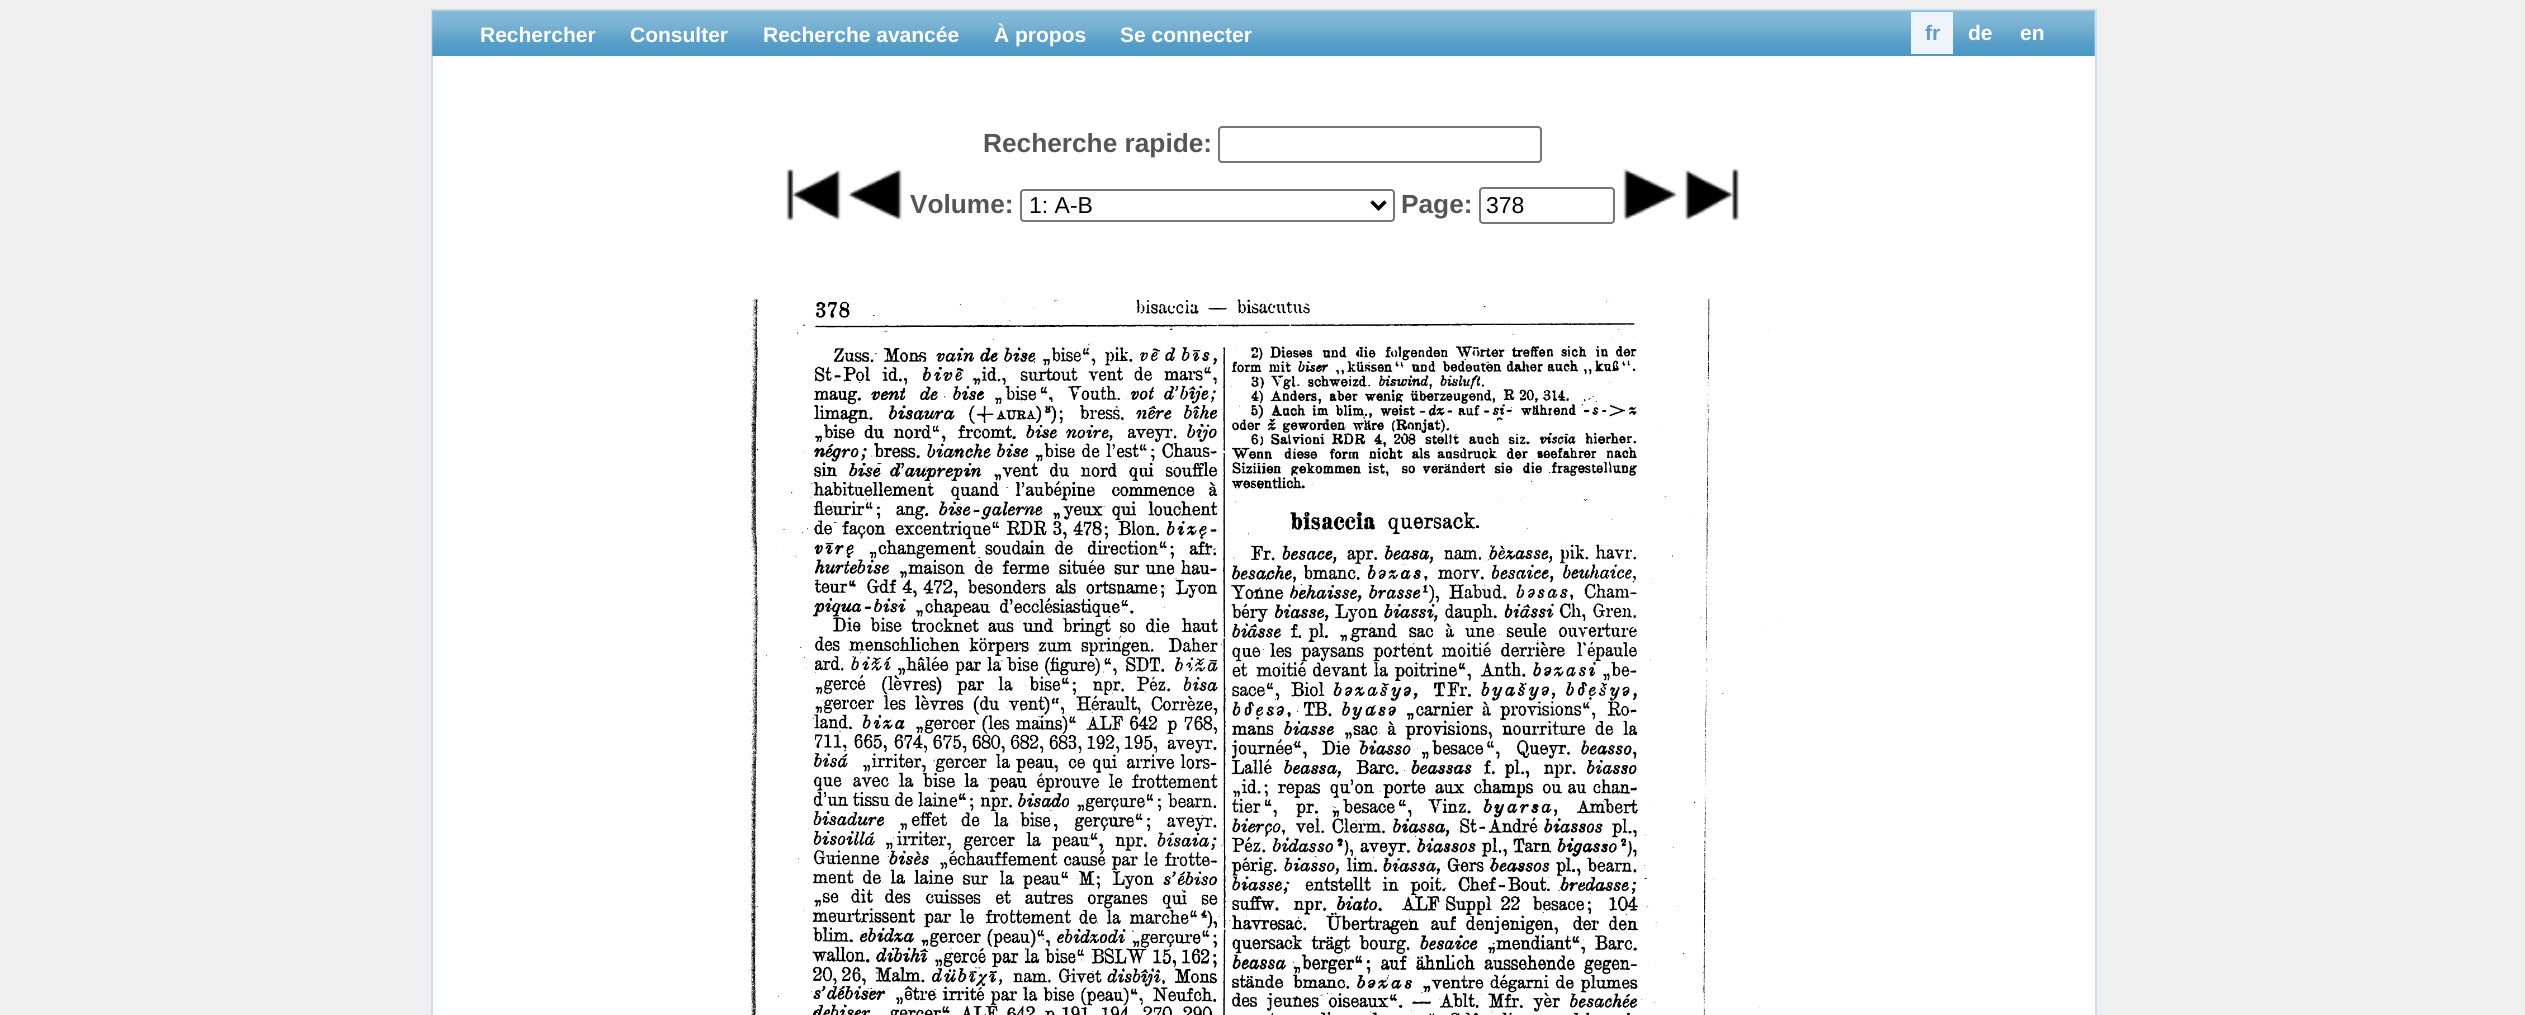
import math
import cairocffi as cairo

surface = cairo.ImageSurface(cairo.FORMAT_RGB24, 2525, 1015)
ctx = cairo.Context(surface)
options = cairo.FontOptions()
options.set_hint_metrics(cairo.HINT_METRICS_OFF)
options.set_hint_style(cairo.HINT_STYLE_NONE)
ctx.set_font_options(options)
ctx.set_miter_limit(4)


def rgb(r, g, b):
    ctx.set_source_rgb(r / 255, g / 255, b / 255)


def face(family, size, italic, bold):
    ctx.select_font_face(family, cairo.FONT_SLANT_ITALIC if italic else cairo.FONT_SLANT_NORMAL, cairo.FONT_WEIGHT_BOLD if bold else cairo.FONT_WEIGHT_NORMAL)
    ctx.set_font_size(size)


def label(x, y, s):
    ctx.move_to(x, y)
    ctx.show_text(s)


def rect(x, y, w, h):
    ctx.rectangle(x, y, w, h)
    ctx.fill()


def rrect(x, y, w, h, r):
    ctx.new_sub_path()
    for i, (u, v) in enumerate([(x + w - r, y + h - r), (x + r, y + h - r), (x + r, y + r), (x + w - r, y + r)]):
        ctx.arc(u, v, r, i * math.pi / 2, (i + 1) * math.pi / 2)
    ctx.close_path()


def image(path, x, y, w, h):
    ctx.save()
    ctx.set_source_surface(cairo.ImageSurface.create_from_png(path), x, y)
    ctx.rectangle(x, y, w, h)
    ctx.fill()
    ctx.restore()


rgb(239, 239, 239)
ctx.paint()
rgb(255, 255, 255)
ctx.rectangle(432, 10, 1664, 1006)
ctx.fill_preserve()
rgb(201, 224, 237)
ctx.stroke()
image('image0.png', 432, 10, 1663, 46)
face('Liberation Sans', 21, 0, 1)
rgb(255, 255, 255)
label(480, 42, 'Rechercher')
label(630, 42, 'Consulter')
label(763, 42, 'Recherche avancée')
label(994, 42, 'À propos')
label(1120, 42, 'Se connecter')
rgb(239, 244, 250)
rect(1911, 12, 42, 42)
rgb(99, 153, 205)
label(1925, 40, 'fr')
rgb(255, 255, 255)
label(1968, 40, 'de')
label(2020, 40, 'en')
face('Liberation Sans', 26.25, 0, 1)
rgb(85, 85, 85)
label(983, 152, 'Recherche rapide:')
rrect(1219, 127, 322, 35, 3)
rgb(118, 118, 118)
ctx.stroke()
image('image1.png', 786, 168, 55, 53)
image('image2.png', 848, 169, 54, 52)
rgb(85, 85, 85)
label(910, 213, 'Volume:')
rrect(1021, 190, 373, 31, 3)
rgb(118, 118, 118)
ctx.stroke()
ctx.new_path()
ctx.move_to(1371.5, 201.5)
ctx.line_to(1378.5, 208.5)
ctx.line_to(1385.5, 201.5)
rgb(0, 0, 0)
ctx.set_line_width(3.5)
ctx.stroke()
face('Liberation Sans', 23, 0, 0)
label(1029, 213, '1: A-B')
face('Liberation Sans', 26.25, 0, 1)
rgb(85, 85, 85)
label(1401, 213, 'Page:')
rrect(1480, 188, 134, 35, 3)
rgb(118, 118, 118)
ctx.set_line_width(2)
ctx.stroke()
face('Liberation Sans', 23, 0, 0)
rgb(0, 0, 0)
label(1486, 213, '378')
image('image3.png', 1623, 169, 54, 51)
image('image4.png', 1685, 168, 55, 53)
image('image5.png', 751, 299, 1028, 716)
surface.write_to_png('render.png')
